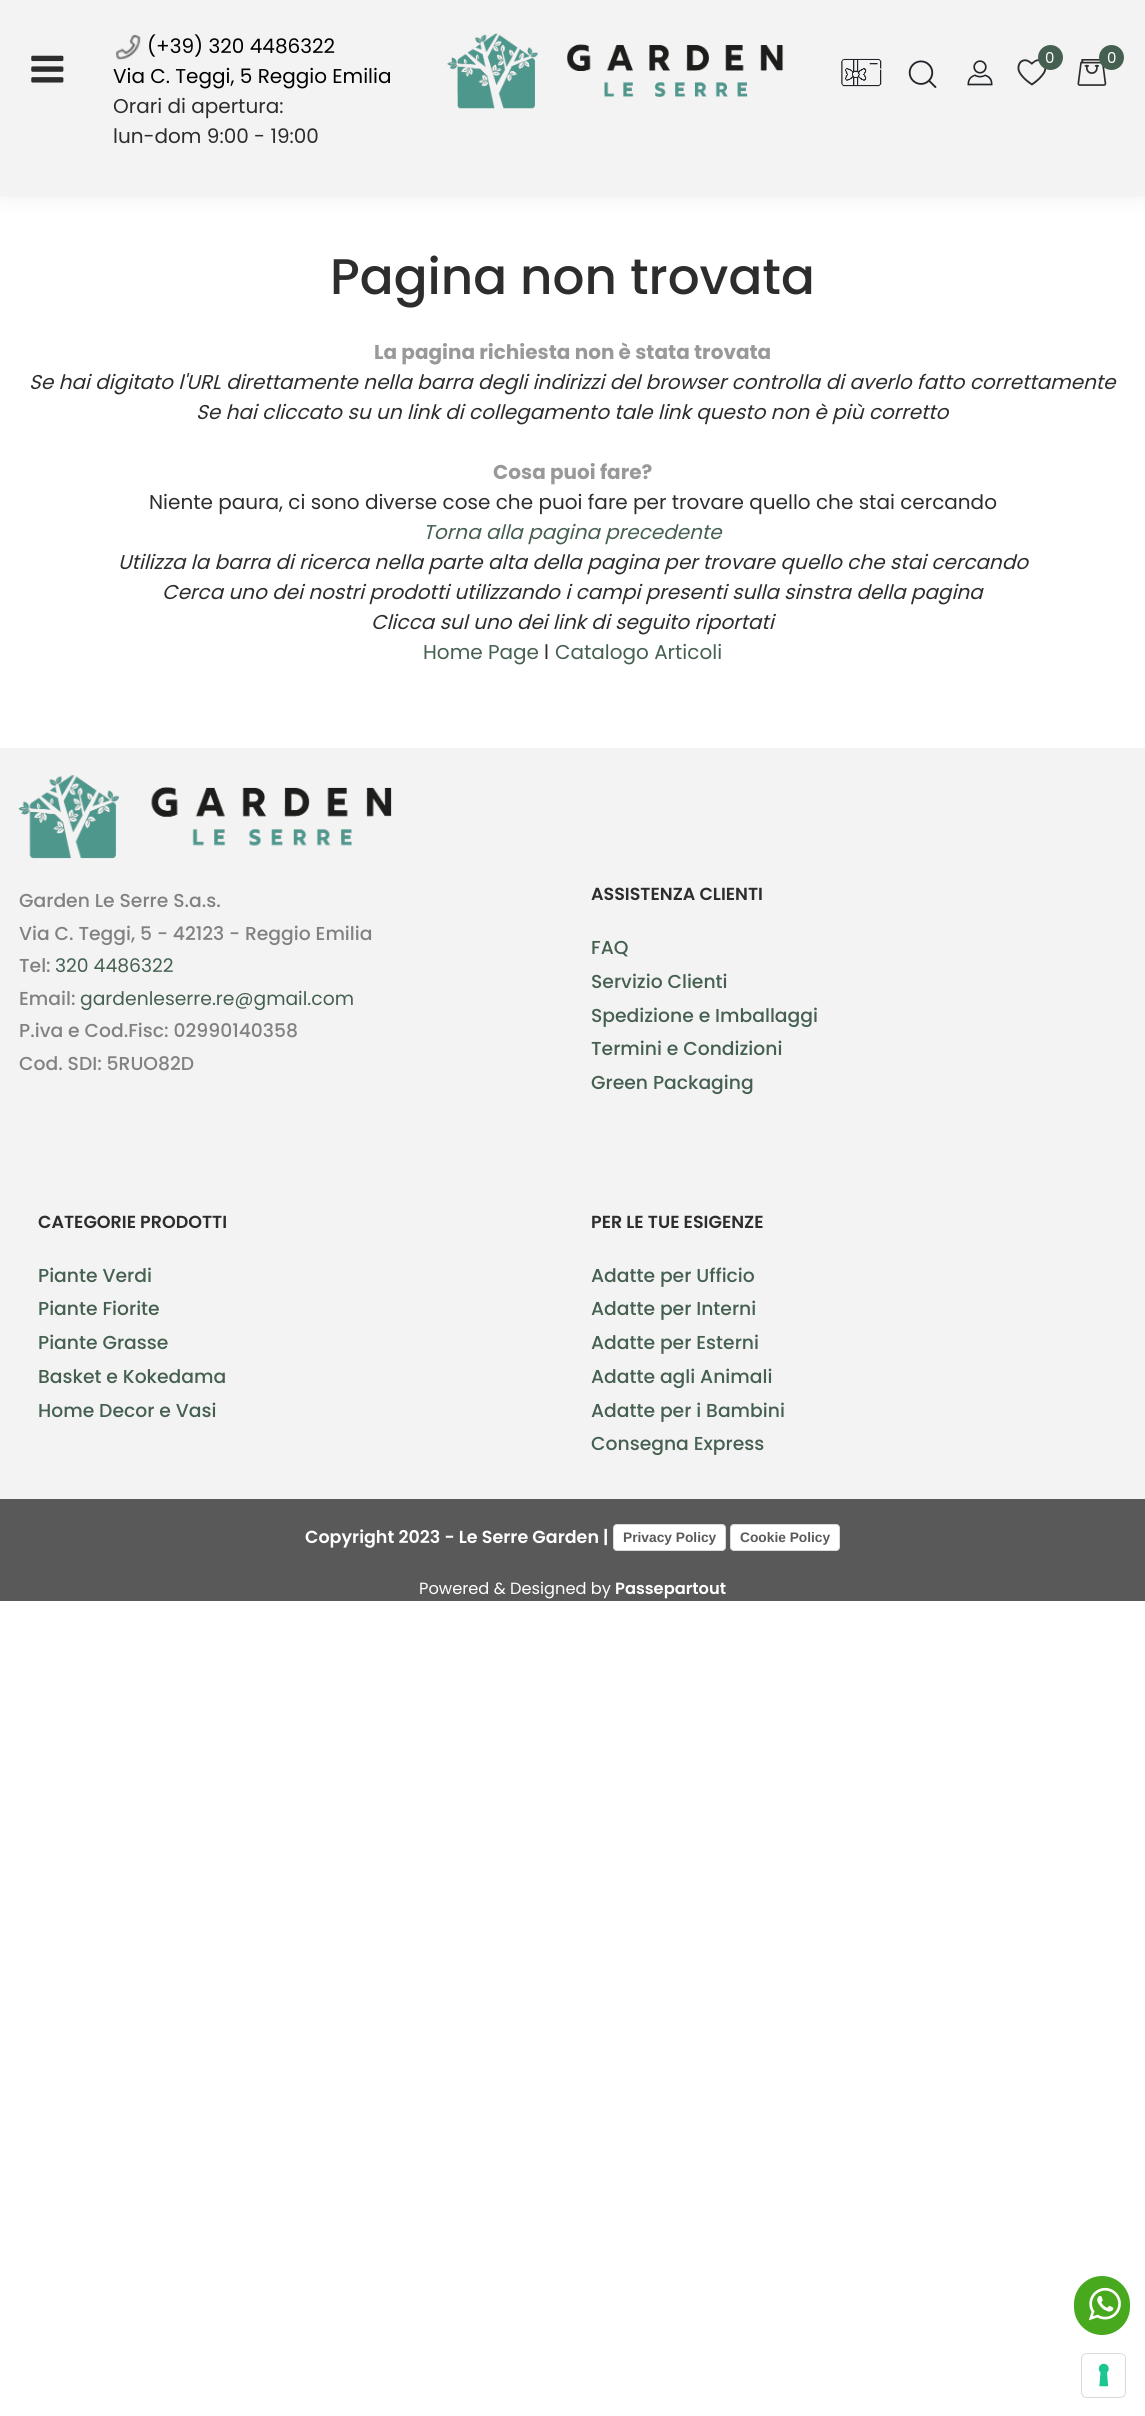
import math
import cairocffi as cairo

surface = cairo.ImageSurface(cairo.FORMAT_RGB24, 1145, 2416)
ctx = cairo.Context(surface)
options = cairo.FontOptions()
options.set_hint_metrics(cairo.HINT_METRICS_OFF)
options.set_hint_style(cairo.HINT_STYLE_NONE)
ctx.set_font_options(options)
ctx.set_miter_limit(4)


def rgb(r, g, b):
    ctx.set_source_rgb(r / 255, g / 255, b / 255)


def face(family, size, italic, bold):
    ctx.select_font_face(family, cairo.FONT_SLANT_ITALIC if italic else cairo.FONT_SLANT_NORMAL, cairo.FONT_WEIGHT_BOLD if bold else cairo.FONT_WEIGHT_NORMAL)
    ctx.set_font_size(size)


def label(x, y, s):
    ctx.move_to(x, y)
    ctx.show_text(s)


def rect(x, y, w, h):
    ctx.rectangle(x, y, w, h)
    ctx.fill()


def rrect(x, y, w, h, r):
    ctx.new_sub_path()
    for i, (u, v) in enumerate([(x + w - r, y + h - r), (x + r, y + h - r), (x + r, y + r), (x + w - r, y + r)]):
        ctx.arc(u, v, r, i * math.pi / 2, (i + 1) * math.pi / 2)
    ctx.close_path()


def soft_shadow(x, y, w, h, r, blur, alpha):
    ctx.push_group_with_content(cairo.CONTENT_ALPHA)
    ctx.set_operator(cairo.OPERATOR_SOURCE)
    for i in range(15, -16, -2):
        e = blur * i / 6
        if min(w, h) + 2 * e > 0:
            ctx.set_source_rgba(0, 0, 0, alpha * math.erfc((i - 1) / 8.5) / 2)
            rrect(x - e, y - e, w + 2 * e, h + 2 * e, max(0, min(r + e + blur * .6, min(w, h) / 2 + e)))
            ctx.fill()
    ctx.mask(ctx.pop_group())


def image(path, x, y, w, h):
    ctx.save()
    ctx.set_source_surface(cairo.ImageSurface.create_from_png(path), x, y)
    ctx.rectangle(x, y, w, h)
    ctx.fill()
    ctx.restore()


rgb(255, 255, 255)
ctx.paint()
rgb(238, 238, 238)
soft_shadow(0, 0, 1145, 196, 0, 9.5, 1)
rgb(243, 243, 243)
rect(0, 0, 1145, 196)
image('image0.png', 31, 55, 33, 28)
image('image1.png', 115, 34, 26, 27)
face('Poppins', 20, 0, 0)
rgb(0, 0, 0)
label(147, 53, '(+39) 320 4486322')
label(113, 83, 'Via C. Teggi, 5 Reggio Emilia')
rgb(45, 45, 45)
label(113, 113, 'Orari di apertura:')
label(113, 143, 'lun-dom 9:00 - 19:00')
image('image2.png', 447, 33, 337, 76)
image('image3.png', 841, 58, 41, 29)
image('image4.png', 908, 60, 29, 28)
image('image5.png', 967, 60, 26, 26)
image('image6.png', 1017, 59, 30, 27)
rgb(69, 96, 80)
ctx.arc(1050.5, 57.5, 12.5, 0, 2 * math.pi)
ctx.fill()
face('Poppins', 15, 0, 0)
rgb(255, 255, 255)
label(1045, 63, '0')
image('image7.png', 1077, 59, 30, 27)
rgb(69, 96, 80)
ctx.arc(1111.5, 57.5, 12.5, 0, 2 * math.pi)
ctx.fill()
rgb(255, 255, 255)
label(1107, 63, '0')
face('Poppins Medium', 50, 0, 0)
rgb(45, 45, 45)
label(330, 294, 'Pagina non trovata')
face('Poppins', 20, 0, 1)
rgb(153, 153, 153)
label(374, 359, 'La pagina richiesta non è stata trovata')
face('Poppins', 20, 1, 0)
rgb(45, 45, 45)
label(29, 389, 'Se hai digitato l\'URL direttamente nella barra degli indirizzi del browser controlla di averlo fatto correttamente')
label(196, 419, 'Se hai cliccato su un link di collegamento tale link questo non è più corretto')
face('Poppins', 20, 0, 1)
rgb(153, 153, 153)
label(493, 479, 'Cosa puoi fare?')
face('Poppins', 20, 0, 0)
rgb(45, 45, 45)
label(149, 509, 'Niente paura, ci sono diverse cose che puoi fare per trovare quello che stai cercando')
face('Poppins', 20, 1, 0)
rgb(69, 96, 80)
label(423, 539, 'Torna alla pagina precedente')
rgb(45, 45, 45)
label(118, 569, 'Utilizza la barra di ricerca nella parte alta della pagina per trovare quello che stai cercando')
label(162, 599, 'Cerca uno dei nostri prodotti utilizzando i campi presenti sulla sinstra della pagina')
label(371, 629, 'Clicca sul uno dei link di seguito riportati')
face('Poppins', 20, 0, 0)
rgb(69, 96, 80)
label(423, 659, 'Home Page')
rgb(45, 45, 45)
label(544, 659, 'l')
rgb(69, 96, 80)
label(555, 659, 'Catalogo Articoli')
rgb(243, 243, 243)
rect(0, 748, 1145, 751)
image('image8.png', 18, 774, 374, 85)
face('Poppins Medium', 18.75, 0, 0)
rgb(129, 130, 128)
label(19, 907, 'Garden Le Serre S.a.s.')
label(19, 940, 'Via C. Teggi, 5 - 42123 - Reggio Emilia')
label(19, 972, 'Tel:')
face('Poppins', 18.75, 0, 0)
rgb(69, 96, 80)
label(55, 972, '320 4486322')
face('Poppins Medium', 18.75, 0, 0)
rgb(129, 130, 128)
label(19, 1005, 'Email:')
face('Poppins', 18.75, 0, 0)
rgb(69, 96, 80)
label(80, 1005, 'gardenleserre.re@gmail.com')
face('Poppins Medium', 18.75, 0, 0)
rgb(129, 130, 128)
label(19, 1037, 'P.iva e Cod.Fisc: 02990140358')
label(19, 1070, 'Cod. SDI: 5RUO82D')
face('Poppins SemiBold', 17.5, 0, 0)
rgb(45, 45, 45)
label(591, 900, 'ASSISTENZA CLIENTI')
face('Poppins Medium', 18.75, 0, 0)
rgb(69, 96, 80)
label(591, 954, 'FAQ')
label(591, 988, 'Servizio Clienti')
label(591, 1022, 'Spedizione e Imballaggi')
label(591, 1055, 'Termini e Condizioni')
label(591, 1089, 'Green Packaging')
face('Poppins SemiBold', 17.5, 0, 0)
rgb(45, 45, 45)
label(38, 1228, 'CATEGORIE PRODOTTI')
face('Poppins Medium', 18.75, 0, 0)
rgb(69, 96, 80)
label(38, 1282, 'Piante Verdi')
label(38, 1315, 'Piante Fiorite')
label(38, 1349, 'Piante Grasse')
label(38, 1383, 'Basket e Kokedama')
label(38, 1417, 'Home Decor e Vasi')
face('Poppins SemiBold', 17.5, 0, 0)
rgb(45, 45, 45)
label(591, 1228, 'PER LE TUE ESIGENZE')
face('Poppins Medium', 18.75, 0, 0)
rgb(69, 96, 80)
label(591, 1282, 'Adatte per Ufficio')
label(591, 1315, 'Adatte per Interni')
label(591, 1349, 'Adatte per Esterni')
label(591, 1383, 'Adatte agli Animali')
label(591, 1417, 'Adatte per i Bambini')
label(591, 1450, 'Consegna Express')
rgb(89, 89, 89)
rect(0, 1499, 1145, 102)
face('Poppins SemiBold', 17.5, 0, 0)
rgb(255, 255, 255)
label(305, 1543, 'Copyright 2023 - Le Serre Garden |')
rrect(613, 1524, 113, 27, 4)
ctx.fill()
rrect(613.5, 1524.5, 112, 26, 3.5)
ctx.set_source_rgba(0, 0, 0, 0.15)
ctx.set_line_width(1)
ctx.stroke()
face('Liberation Sans', 13.75, 0, 1)
rgb(89, 89, 89)
label(623, 1542, 'Privacy Policy')
rgb(255, 255, 255)
rrect(730, 1524, 110, 27, 4)
ctx.fill()
rrect(730.5, 1524.5, 109, 26, 3.5)
ctx.set_source_rgba(0, 0, 0, 0.15)
ctx.stroke()
rgb(89, 89, 89)
label(740, 1542, 'Cookie Policy')
rgb(72, 169, 31)
rrect(1074, 2276, 56, 59, 28)
ctx.fill()
image('image9.png', 1088, 2287, 33, 34)
face('Poppins', 16.25, 0, 0)
rgb(255, 255, 255)
label(419, 1594, 'Powered & Designed by')
face('Poppins SemiBold', 16.25, 0, 0)
label(615, 1594, 'Passepartout')
rrect(1081.5, 2353.5, 44, 44, 5.5)
rgb(217, 217, 217)
ctx.stroke()
rgb(255, 255, 255)
rrect(1083, 2354, 42, 42, 5)
ctx.fill()
image('image10.png', 1098, 2363, 11, 24)
surface.write_to_png('render.png')
